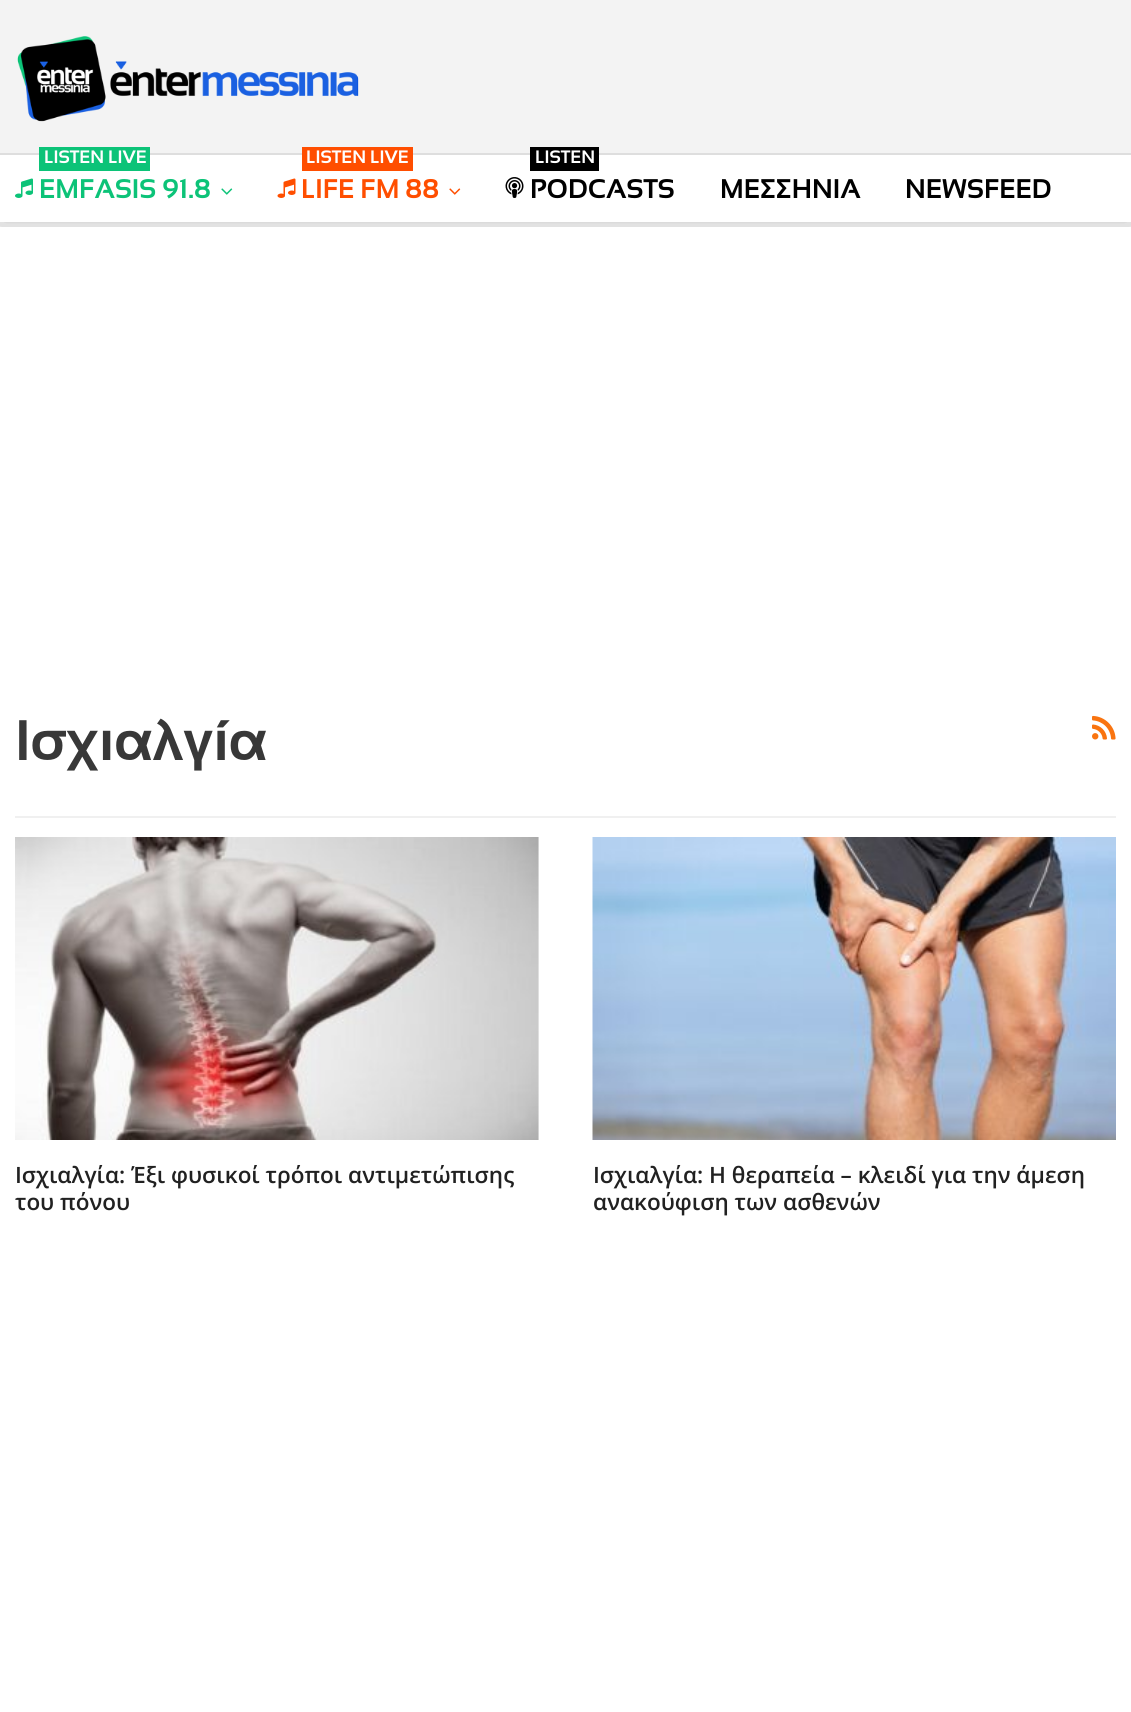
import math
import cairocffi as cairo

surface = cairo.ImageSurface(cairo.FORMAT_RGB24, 1131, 1712)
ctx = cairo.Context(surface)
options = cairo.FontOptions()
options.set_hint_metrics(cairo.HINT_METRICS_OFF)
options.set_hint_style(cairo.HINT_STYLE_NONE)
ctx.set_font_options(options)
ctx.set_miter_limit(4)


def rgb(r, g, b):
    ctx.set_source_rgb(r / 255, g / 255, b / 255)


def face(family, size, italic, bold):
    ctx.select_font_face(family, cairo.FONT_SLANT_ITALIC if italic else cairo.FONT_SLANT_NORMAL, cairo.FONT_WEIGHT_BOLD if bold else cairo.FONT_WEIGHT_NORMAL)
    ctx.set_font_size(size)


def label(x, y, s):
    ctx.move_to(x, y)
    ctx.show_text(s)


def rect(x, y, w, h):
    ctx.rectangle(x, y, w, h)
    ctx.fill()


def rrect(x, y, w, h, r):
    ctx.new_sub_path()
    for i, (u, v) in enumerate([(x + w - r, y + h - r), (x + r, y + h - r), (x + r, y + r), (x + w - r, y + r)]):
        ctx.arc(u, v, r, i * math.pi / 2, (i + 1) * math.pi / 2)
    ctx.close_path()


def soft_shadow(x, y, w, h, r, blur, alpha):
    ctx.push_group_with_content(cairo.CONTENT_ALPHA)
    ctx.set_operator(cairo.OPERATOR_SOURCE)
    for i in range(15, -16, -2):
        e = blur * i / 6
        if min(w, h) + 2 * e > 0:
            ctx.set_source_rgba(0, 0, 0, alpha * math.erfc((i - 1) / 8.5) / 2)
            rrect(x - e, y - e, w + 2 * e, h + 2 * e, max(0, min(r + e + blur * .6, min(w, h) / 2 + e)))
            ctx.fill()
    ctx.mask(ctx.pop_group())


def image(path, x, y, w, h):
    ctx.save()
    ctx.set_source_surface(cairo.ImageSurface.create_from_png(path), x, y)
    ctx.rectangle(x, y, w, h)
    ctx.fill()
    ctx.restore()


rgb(243, 243, 243)
ctx.paint()
ctx.save()
ctx.rectangle(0, 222, 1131, 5)
ctx.clip()
rgb(0, 0, 0)
soft_shadow(0, -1, 1131, 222, 0, 15, 0.2)
ctx.restore()
image('image0.png', 17, 36, 342, 86)
rgb(255, 255, 255)
rect(0, 155, 1131, 67)
rgb(222, 222, 222)
rect(0, 153, 1131, 2)
rgb(12, 195, 120)
rect(39, 147, 111, 24)
face('Sansation', 18, 0, 1)
rgb(255, 255, 255)
label(44, 163, 'LISTEN LIVE')
image('image1.png', 15, 178, 18, 20)
face('Sansation', 27, 0, 1)
rgb(12, 195, 120)
label(39, 198, 'EMFASIS 91.8')
image('image2.png', 221, 188, 12, 7)
rgb(255, 78, 0)
rect(302, 147, 111, 24)
face('Sansation', 18, 0, 1)
rgb(255, 255, 255)
label(306, 163, 'LISTEN LIVE')
image('image3.png', 277, 178, 19, 20)
face('Sansation', 27, 0, 1)
rgb(255, 78, 0)
label(301, 198, 'LIFE FM 88')
image('image4.png', 449, 188, 12, 7)
rgb(0, 0, 0)
rect(530, 147, 69, 24)
face('Sansation', 18, 0, 1)
rgb(255, 255, 255)
label(535, 163, 'LISTEN')
image('image5.png', 505, 177, 19, 21)
face('Sansation', 27, 0, 1)
rgb(0, 0, 0)
label(530, 198, 'PODCASTS')
label(720, 198, 'ΜΕΣΣΗΝΙΑ')
label(905, 198, 'NEWSFEED')
rgb(255, 255, 255)
rect(0, 227, 1131, 1485)
rgb(240, 240, 240)
rect(15, 816, 1101, 2)
face('Sansation', 57, 0, 1)
rgb(56, 56, 56)
label(15, 760, 'Ισχιαλγία')
image('image6.png', 1092, 715, 24, 25)
rgb(245, 245, 245)
rect(538, 837, 1, 303)
image('image7.png', 15, 837, 524, 303)
face('Open Sans SemiBold', 22.5, 0, 0)
rgb(33, 33, 33)
label(15, 1183, 'Ισχιαλγία: Έξι φυσικοί τρόποι αντιμετώπισης')
label(15, 1210, 'του πόνου')
image('image8.png', 592, 837, 524, 303)
label(593, 1183, 'Ισχιαλγία: Η θεραπεία – κλειδί για την άμεση')
label(593, 1210, 'ανακούφιση των ασθενών')
surface.write_to_png('render.png')
